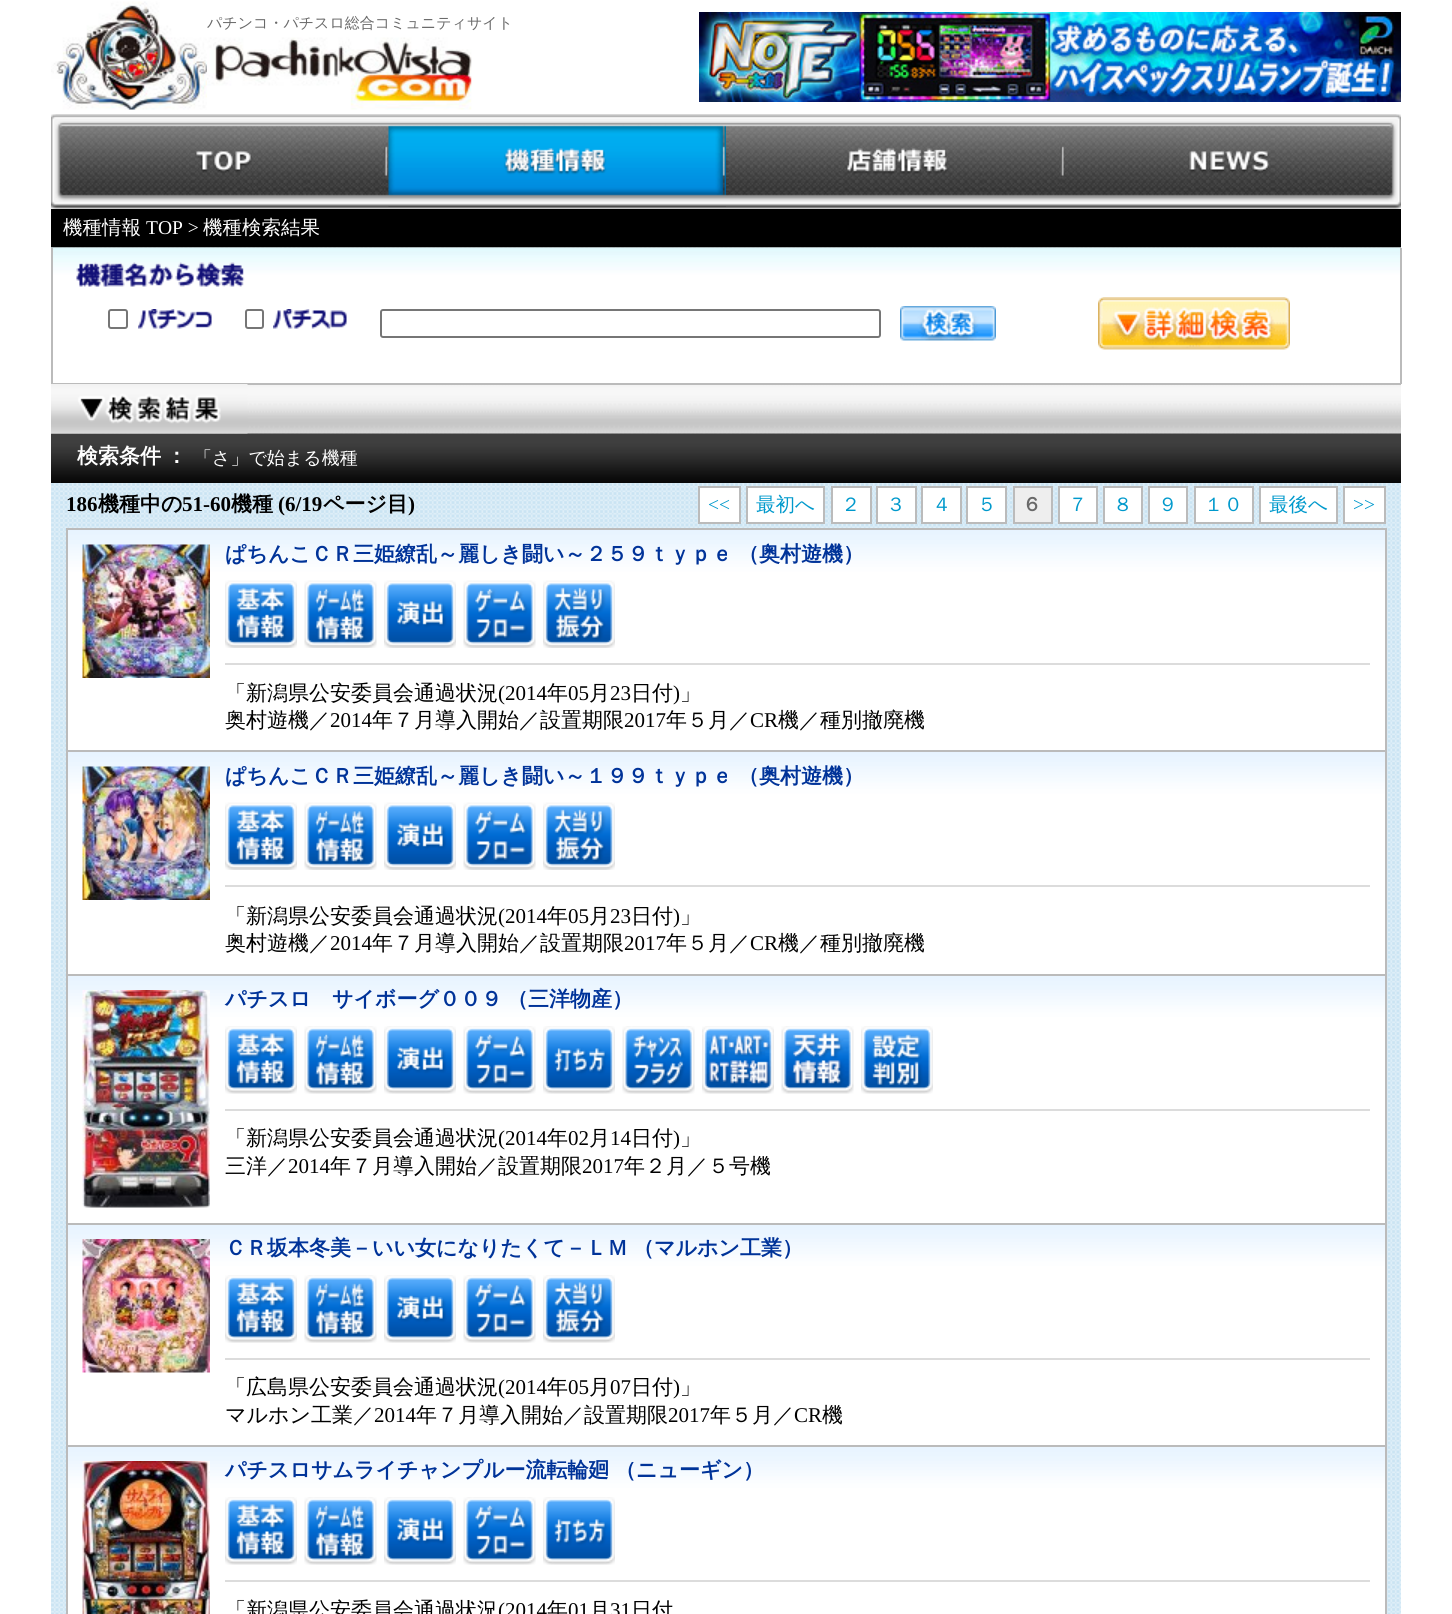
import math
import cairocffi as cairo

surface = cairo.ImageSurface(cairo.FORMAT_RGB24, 1452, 1614)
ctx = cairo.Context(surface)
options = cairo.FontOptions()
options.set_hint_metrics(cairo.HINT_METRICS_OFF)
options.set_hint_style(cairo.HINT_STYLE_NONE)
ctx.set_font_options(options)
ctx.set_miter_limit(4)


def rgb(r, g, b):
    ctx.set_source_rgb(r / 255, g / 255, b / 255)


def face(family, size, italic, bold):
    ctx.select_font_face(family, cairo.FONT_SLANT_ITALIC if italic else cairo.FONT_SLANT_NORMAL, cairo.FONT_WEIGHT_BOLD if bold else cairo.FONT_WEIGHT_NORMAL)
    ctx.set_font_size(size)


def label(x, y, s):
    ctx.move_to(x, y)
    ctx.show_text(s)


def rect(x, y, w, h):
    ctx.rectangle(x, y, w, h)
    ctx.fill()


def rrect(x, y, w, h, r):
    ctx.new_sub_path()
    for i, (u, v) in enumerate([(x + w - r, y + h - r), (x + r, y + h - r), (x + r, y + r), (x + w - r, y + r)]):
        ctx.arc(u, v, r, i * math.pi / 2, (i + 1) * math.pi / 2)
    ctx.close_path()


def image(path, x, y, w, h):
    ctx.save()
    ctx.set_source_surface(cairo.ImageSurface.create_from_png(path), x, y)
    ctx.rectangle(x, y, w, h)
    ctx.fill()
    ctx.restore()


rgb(255, 255, 255)
ctx.paint()
image('image0.png', 51, 1, 156, 109)
face('WenQuanYi Zen Hei Medium', 15, 0, 0)
rgb(105, 105, 105)
label(207, 28, 'パチンコ・パチスロ総合コミュニティサイト')
image('image1.png', 207, 37, 265, 73)
image('image2.png', 699, 12, 702, 90)
image('image3.png', 51, 114, 1350, 95)
image('image4.png', 388, 125, 338, 82)
rgb(0, 0, 0)
rect(51, 209, 1350, 39)
face('WenQuanYi Zen Hei Medium', 19.5, 0, 0)
rgb(255, 255, 255)
label(63, 234, '機種情報')
face('Liberation Serif', 19.5, 0, 0)
label(146, 234, 'TOP >')
face('WenQuanYi Zen Hei Medium', 19.5, 0, 0)
label(203, 234, '機種検索結果')
image('image5.png', 51, 247, 1350, 187)
rect(53, 295, 1347, 88)
image('image6.png', 51, 247, 1350, 49)
rgb(187, 187, 187)
rect(1400, 248, 2, 136)
rect(51, 383, 1350, 2)
rect(51, 248, 2, 136)
image('image7.png', 76, 262, 169, 25)
rrect(109, 310, 18, 18, 2)
rgb(118, 118, 118)
ctx.stroke()
image('image8.png', 138, 309, 74, 20)
rrect(246, 310, 17, 18, 2)
ctx.stroke()
image('image9.png', 273, 309, 74, 20)
rrect(381, 310, 499, 27, 2)
ctx.stroke()
image('image10.png', 900, 306, 96, 35)
image('image11.png', 1098, 297, 192, 53)
image('image12.png', 51, 385, 1350, 49)
image('image14.png', 51, 433, 1350, 50)
image('image13.png', 51, 384, 197, 50)
face('WenQuanYi Zen Hei', 21, 0, 1)
rgb(255, 255, 255)
label(77, 463, '検索条件')
label(166, 463, '：')
face('WenQuanYi Zen Hei Medium', 18, 0, 0)
label(194, 464, '「さ」で始まる機種')
image('image15.png', 51, 483, 1350, 45)
face('Liberation Serif', 21, 0, 1)
rgb(0, 0, 0)
label(66, 511, '186')
face('WenQuanYi Zen Hei', 21, 0, 1)
label(98, 511, '機種中の')
face('Liberation Serif', 21, 0, 1)
label(182, 511, '51-60')
face('WenQuanYi Zen Hei', 21, 0, 1)
label(231, 511, '機種')
face('Liberation Serif', 21, 0, 1)
label(278, 511, '(6/19')
face('WenQuanYi Zen Hei', 21, 0, 1)
label(323, 511, 'ページ目')
face('Liberation Serif', 21, 0, 1)
label(408, 511, ')')
rgb(255, 255, 255)
ctx.rectangle(699, 487, 41, 36)
ctx.fill_preserve()
rgb(187, 187, 187)
ctx.stroke()
face('Liberation Serif', 19.5, 0, 0)
rgb(0, 153, 204)
label(708, 511, '<<')
rgb(255, 255, 255)
ctx.rectangle(747, 487, 77, 36)
ctx.fill_preserve()
rgb(187, 187, 187)
ctx.stroke()
face('WenQuanYi Zen Hei Medium', 19.5, 0, 0)
rgb(0, 153, 204)
label(756, 511, '最初へ')
rgb(255, 255, 255)
ctx.rectangle(832, 487, 39, 36)
ctx.fill_preserve()
rgb(187, 187, 187)
ctx.stroke()
rgb(0, 153, 204)
label(841, 511, '２')
rgb(255, 255, 255)
ctx.rectangle(877, 487, 39, 36)
ctx.fill_preserve()
rgb(187, 187, 187)
ctx.stroke()
rgb(0, 153, 204)
label(886, 511, '３')
rgb(255, 255, 255)
ctx.rectangle(922, 487, 39, 36)
ctx.fill_preserve()
rgb(187, 187, 187)
ctx.stroke()
rgb(0, 153, 204)
label(932, 511, '４')
rgb(255, 255, 255)
ctx.rectangle(967, 487, 39, 36)
ctx.fill_preserve()
rgb(187, 187, 187)
ctx.stroke()
rgb(0, 153, 204)
label(977, 511, '５')
rgb(238, 238, 238)
ctx.rectangle(1014, 487, 38, 36)
ctx.fill_preserve()
rgb(187, 187, 187)
ctx.stroke()
face('WenQuanYi Zen Hei', 19.5, 0, 1)
rgb(105, 105, 105)
label(1022, 511, '６')
rgb(255, 255, 255)
ctx.rectangle(1059, 487, 38, 36)
ctx.fill_preserve()
rgb(187, 187, 187)
ctx.stroke()
face('WenQuanYi Zen Hei Medium', 19.5, 0, 0)
rgb(0, 153, 204)
label(1068, 511, '７')
rgb(255, 255, 255)
ctx.rectangle(1104, 487, 38, 36)
ctx.fill_preserve()
rgb(187, 187, 187)
ctx.stroke()
rgb(0, 153, 204)
label(1113, 511, '８')
rgb(255, 255, 255)
ctx.rectangle(1149, 487, 38, 36)
ctx.fill_preserve()
rgb(187, 187, 187)
ctx.stroke()
rgb(0, 153, 204)
label(1158, 511, '９')
rgb(255, 255, 255)
ctx.rectangle(1195, 487, 58, 36)
ctx.fill_preserve()
rgb(187, 187, 187)
ctx.stroke()
rgb(0, 153, 204)
label(1204, 511, '１０')
rgb(255, 255, 255)
ctx.rectangle(1260, 487, 77, 36)
ctx.fill_preserve()
rgb(187, 187, 187)
ctx.stroke()
rgb(0, 153, 204)
label(1269, 511, '最後へ')
rgb(255, 255, 255)
ctx.rectangle(1344, 487, 41, 36)
ctx.fill_preserve()
rgb(187, 187, 187)
ctx.stroke()
face('Liberation Serif', 19.5, 0, 0)
rgb(0, 153, 204)
label(1353, 511, '>>')
image('image16.png', 51, 528, 1350, 1086)
rgb(255, 255, 255)
rect(68, 574, 1317, 1040)
rgb(187, 187, 187)
rect(66, 528, 1320, 2)
rect(66, 528, 2, 1086)
image('image17.png', 68, 530, 1317, 45)
rect(1385, 528, 2, 1086)
rect(66, 750, 1320, 2)
image('image18.png', 82, 544, 128, 134)
face('WenQuanYi Zen Hei', 21, 0, 1)
rgb(0, 51, 153)
label(225, 561, 'ぱちんこＣＲ三姫繚乱～麗しき闘い～２５９ｔｙｐｅ')
label(738, 561, '（奥村遊機）')
image('image19.png', 225, 580, 72, 68)
image('image20.png', 304, 580, 73, 68)
image('image21.png', 384, 580, 72, 68)
image('image22.png', 463, 580, 73, 68)
image('image23.png', 543, 580, 72, 68)
rgb(220, 220, 220)
rect(225, 663, 1145, 2)
face('WenQuanYi Zen Hei Medium', 21, 0, 0)
rgb(0, 0, 0)
label(225, 700, '「新潟県公安委員会通過状況')
face('Liberation Serif', 21, 0, 0)
label(498, 700, '(2014')
face('WenQuanYi Zen Hei Medium', 21, 0, 0)
label(547, 700, '年')
face('Liberation Serif', 21, 0, 0)
label(568, 700, '05')
face('WenQuanYi Zen Hei Medium', 21, 0, 0)
label(589, 700, '月')
face('Liberation Serif', 21, 0, 0)
label(610, 700, '23')
face('WenQuanYi Zen Hei Medium', 21, 0, 0)
label(631, 700, '日付')
face('Liberation Serif', 21, 0, 0)
label(673, 700, ')')
face('WenQuanYi Zen Hei Medium', 21, 0, 0)
label(680, 700, '」')
label(225, 727, '奥村遊機／')
face('Liberation Serif', 21, 0, 0)
label(330, 727, '2014')
face('WenQuanYi Zen Hei Medium', 21, 0, 0)
label(372, 727, '年７月導入開始／設置期限')
face('Liberation Serif', 21, 0, 0)
label(624, 727, '2017')
face('WenQuanYi Zen Hei Medium', 21, 0, 0)
label(666, 727, '年５月／')
face('Liberation Serif', 21, 0, 0)
label(750, 727, 'CR')
face('WenQuanYi Zen Hei Medium', 21, 0, 0)
label(778, 727, '機／種別撤廃機')
image('image24.png', 68, 752, 1317, 45)
rgb(187, 187, 187)
rect(66, 974, 1320, 2)
image('image25.png', 82, 766, 128, 134)
face('WenQuanYi Zen Hei', 21, 0, 1)
rgb(0, 51, 153)
label(225, 783, 'ぱちんこＣＲ三姫繚乱～麗しき闘い～１９９ｔｙｐｅ')
label(738, 783, '（奥村遊機）')
image('image19.png', 225, 802, 72, 68)
image('image20.png', 304, 802, 73, 68)
image('image21.png', 384, 802, 72, 68)
image('image22.png', 463, 802, 73, 68)
image('image23.png', 543, 802, 72, 68)
rgb(220, 220, 220)
rect(225, 885, 1145, 2)
face('WenQuanYi Zen Hei Medium', 21, 0, 0)
rgb(0, 0, 0)
label(225, 923, '「新潟県公安委員会通過状況')
face('Liberation Serif', 21, 0, 0)
label(498, 923, '(2014')
face('WenQuanYi Zen Hei Medium', 21, 0, 0)
label(547, 923, '年')
face('Liberation Serif', 21, 0, 0)
label(568, 923, '05')
face('WenQuanYi Zen Hei Medium', 21, 0, 0)
label(589, 923, '月')
face('Liberation Serif', 21, 0, 0)
label(610, 923, '23')
face('WenQuanYi Zen Hei Medium', 21, 0, 0)
label(631, 923, '日付')
face('Liberation Serif', 21, 0, 0)
label(673, 923, ')')
face('WenQuanYi Zen Hei Medium', 21, 0, 0)
label(680, 923, '」')
label(225, 950, '奥村遊機／')
face('Liberation Serif', 21, 0, 0)
label(330, 950, '2014')
face('WenQuanYi Zen Hei Medium', 21, 0, 0)
label(372, 950, '年７月導入開始／設置期限')
face('Liberation Serif', 21, 0, 0)
label(624, 950, '2017')
face('WenQuanYi Zen Hei Medium', 21, 0, 0)
label(666, 950, '年５月／')
face('Liberation Serif', 21, 0, 0)
label(750, 950, 'CR')
face('WenQuanYi Zen Hei Medium', 21, 0, 0)
label(778, 950, '機／種別撤廃機')
image('image26.png', 68, 976, 1317, 44)
rgb(187, 187, 187)
rect(66, 1223, 1320, 2)
image('image27.png', 82, 990, 128, 218)
face('WenQuanYi Zen Hei', 21, 0, 1)
rgb(0, 51, 153)
label(225, 1006, 'パチスロ　サイボーグ００９')
label(507, 1006, '（三洋物産）')
image('image28.png', 225, 1026, 72, 68)
image('image29.png', 304, 1026, 73, 68)
image('image30.png', 384, 1026, 72, 68)
image('image31.png', 463, 1026, 73, 68)
image('image32.png', 543, 1026, 72, 68)
image('image33.png', 622, 1026, 73, 68)
image('image34.png', 702, 1026, 72, 68)
image('image35.png', 781, 1026, 73, 68)
image('image36.png', 861, 1026, 72, 68)
rgb(220, 220, 220)
rect(225, 1109, 1145, 2)
face('WenQuanYi Zen Hei Medium', 21, 0, 0)
rgb(0, 0, 0)
label(225, 1145, '「新潟県公安委員会通過状況')
face('Liberation Serif', 21, 0, 0)
label(498, 1145, '(2014')
face('WenQuanYi Zen Hei Medium', 21, 0, 0)
label(547, 1145, '年')
face('Liberation Serif', 21, 0, 0)
label(568, 1145, '02')
face('WenQuanYi Zen Hei Medium', 21, 0, 0)
label(589, 1145, '月')
face('Liberation Serif', 21, 0, 0)
label(610, 1145, '14')
face('WenQuanYi Zen Hei Medium', 21, 0, 0)
label(631, 1145, '日付')
face('Liberation Serif', 21, 0, 0)
label(673, 1145, ')')
face('WenQuanYi Zen Hei Medium', 21, 0, 0)
label(680, 1145, '」')
label(225, 1173, '三洋／')
face('Liberation Serif', 21, 0, 0)
label(288, 1173, '2014')
face('WenQuanYi Zen Hei Medium', 21, 0, 0)
label(330, 1173, '年７月導入開始／設置期限')
face('Liberation Serif', 21, 0, 0)
label(582, 1173, '2017')
face('WenQuanYi Zen Hei Medium', 21, 0, 0)
label(624, 1173, '年２月／５号機')
image('image26.png', 68, 1225, 1317, 44)
rgb(187, 187, 187)
rect(66, 1445, 1320, 2)
image('image37.png', 82, 1239, 128, 134)
face('WenQuanYi Zen Hei', 21, 0, 1)
rgb(0, 51, 153)
label(225, 1255, 'ＣＲ坂本冬美－いい女になりたくて－ＬＭ')
label(633, 1255, '（マルホン工業）')
image('image28.png', 225, 1275, 72, 68)
image('image29.png', 304, 1275, 73, 68)
image('image30.png', 384, 1275, 72, 68)
image('image31.png', 463, 1275, 73, 68)
image('image38.png', 543, 1275, 72, 68)
rgb(220, 220, 220)
rect(225, 1358, 1145, 2)
face('WenQuanYi Zen Hei Medium', 21, 0, 0)
rgb(0, 0, 0)
label(225, 1394, '「広島県公安委員会通過状況')
face('Liberation Serif', 21, 0, 0)
label(498, 1394, '(2014')
face('WenQuanYi Zen Hei Medium', 21, 0, 0)
label(547, 1394, '年')
face('Liberation Serif', 21, 0, 0)
label(568, 1394, '05')
face('WenQuanYi Zen Hei Medium', 21, 0, 0)
label(589, 1394, '月')
face('Liberation Serif', 21, 0, 0)
label(610, 1394, '07')
face('WenQuanYi Zen Hei Medium', 21, 0, 0)
label(631, 1394, '日付')
face('Liberation Serif', 21, 0, 0)
label(673, 1394, ')')
face('WenQuanYi Zen Hei Medium', 21, 0, 0)
label(680, 1394, '」')
label(225, 1422, 'マルホン工業／')
face('Liberation Serif', 21, 0, 0)
label(374, 1422, '2014')
face('WenQuanYi Zen Hei Medium', 21, 0, 0)
label(416, 1422, '年７月導入開始／設置期限')
face('Liberation Serif', 21, 0, 0)
label(668, 1422, '2017')
face('WenQuanYi Zen Hei Medium', 21, 0, 0)
label(710, 1422, '年５月／')
face('Liberation Serif', 21, 0, 0)
label(794, 1422, 'CR')
face('WenQuanYi Zen Hei Medium', 21, 0, 0)
label(822, 1422, '機')
image('image26.png', 68, 1447, 1317, 44)
image('image39.png', 82, 1461, 128, 153)
face('WenQuanYi Zen Hei', 21, 0, 1)
rgb(0, 51, 153)
label(225, 1477, 'パチスロサムライチャンプルー流転輪廻')
label(615, 1477, '（ニューギン）')
image('image28.png', 225, 1497, 72, 68)
image('image29.png', 304, 1497, 73, 68)
image('image30.png', 384, 1497, 72, 68)
image('image31.png', 463, 1497, 73, 68)
image('image32.png', 543, 1497, 72, 68)
rgb(220, 220, 220)
rect(225, 1580, 1145, 2)
face('WenQuanYi Zen Hei Medium', 21, 0, 0)
rgb(0, 0, 0)
label(225, 1617, '「新潟県公安委員会通過状況')
face('Liberation Serif', 21, 0, 0)
label(498, 1617, '(2014')
face('WenQuanYi Zen Hei Medium', 21, 0, 0)
label(547, 1617, '年')
face('Liberation Serif', 21, 0, 0)
label(568, 1617, '01')
face('WenQuanYi Zen Hei Medium', 21, 0, 0)
label(589, 1617, '月')
face('Liberation Serif', 21, 0, 0)
label(610, 1617, '31')
face('WenQuanYi Zen Hei Medium', 21, 0, 0)
label(631, 1617, '日付')
surface.write_to_png('render.png')
